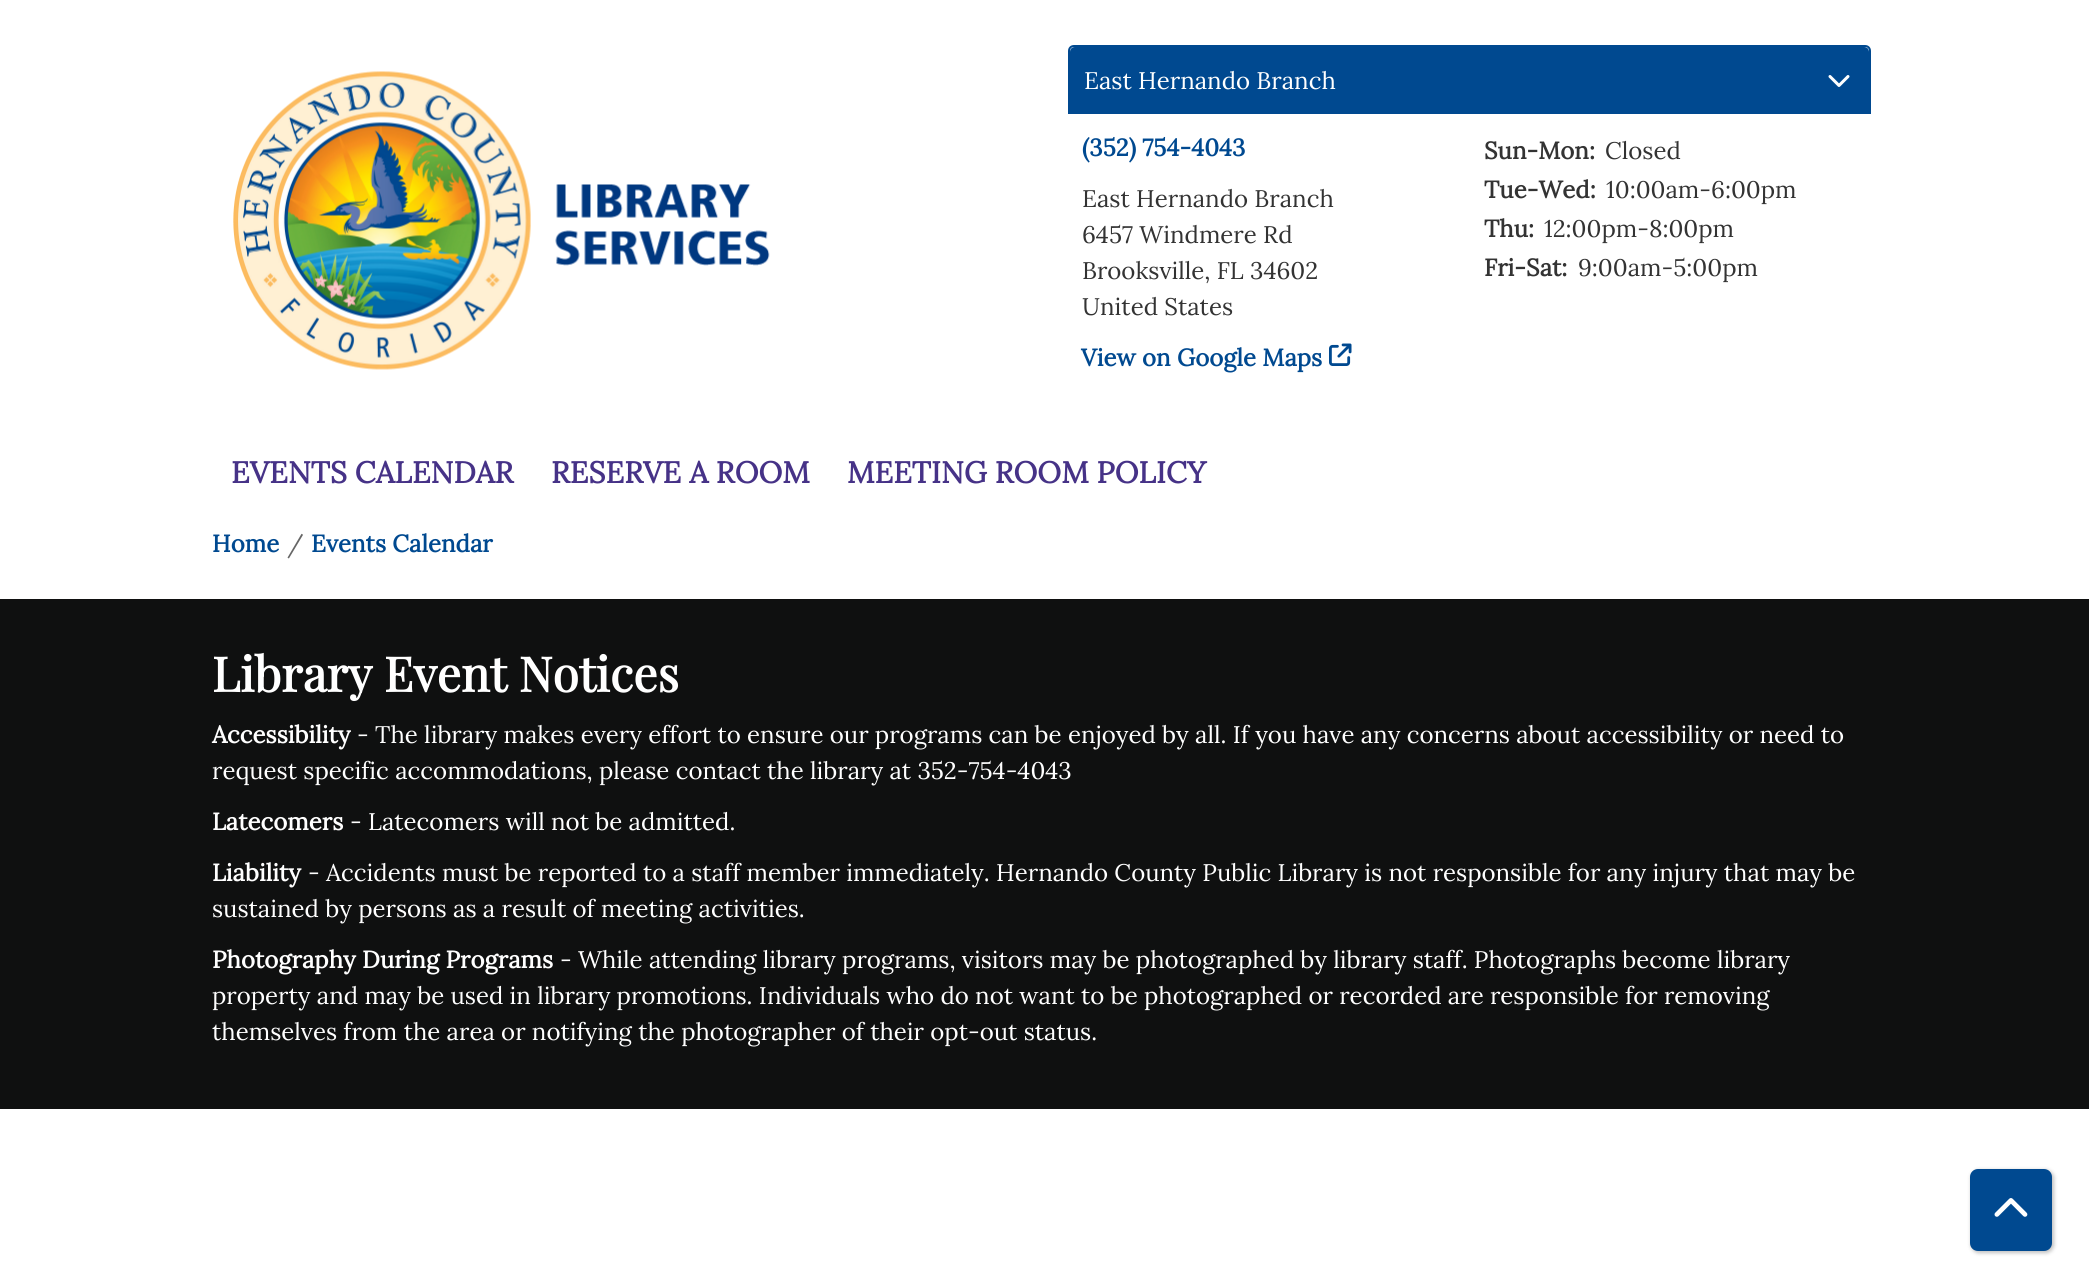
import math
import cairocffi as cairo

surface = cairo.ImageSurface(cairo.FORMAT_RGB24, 2089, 1288)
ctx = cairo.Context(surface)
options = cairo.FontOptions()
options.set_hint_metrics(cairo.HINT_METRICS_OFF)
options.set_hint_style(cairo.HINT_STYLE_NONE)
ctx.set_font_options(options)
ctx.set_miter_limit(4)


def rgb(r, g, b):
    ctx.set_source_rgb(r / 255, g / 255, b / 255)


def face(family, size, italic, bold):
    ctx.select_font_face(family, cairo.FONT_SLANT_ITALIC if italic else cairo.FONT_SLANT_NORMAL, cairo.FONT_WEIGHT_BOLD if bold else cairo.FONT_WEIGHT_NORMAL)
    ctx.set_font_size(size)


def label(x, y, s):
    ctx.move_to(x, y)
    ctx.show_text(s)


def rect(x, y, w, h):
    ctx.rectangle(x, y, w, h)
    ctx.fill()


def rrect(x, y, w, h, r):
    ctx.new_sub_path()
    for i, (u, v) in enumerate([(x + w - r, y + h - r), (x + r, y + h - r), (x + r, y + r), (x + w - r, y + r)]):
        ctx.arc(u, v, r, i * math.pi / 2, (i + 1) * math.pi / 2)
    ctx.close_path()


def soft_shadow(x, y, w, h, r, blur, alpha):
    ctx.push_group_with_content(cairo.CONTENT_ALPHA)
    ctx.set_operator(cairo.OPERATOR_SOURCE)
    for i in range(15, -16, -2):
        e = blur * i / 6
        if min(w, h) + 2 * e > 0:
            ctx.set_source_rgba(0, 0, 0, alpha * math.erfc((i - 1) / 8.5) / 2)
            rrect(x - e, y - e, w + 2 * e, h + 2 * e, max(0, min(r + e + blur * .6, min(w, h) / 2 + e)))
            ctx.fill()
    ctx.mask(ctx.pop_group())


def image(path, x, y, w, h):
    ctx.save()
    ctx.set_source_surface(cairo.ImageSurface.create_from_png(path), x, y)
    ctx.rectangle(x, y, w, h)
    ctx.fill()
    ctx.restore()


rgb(255, 255, 255)
ctx.paint()
image('image0.png', 233, 71, 537, 299)
rgb(0, 73, 144)
ctx.new_path()
ctx.move_to(1075, 47)
ctx.line_to(1864, 47)
ctx.curve_to(1867, 47, 1869, 49, 1869, 52)
ctx.line_to(1869, 113)
ctx.line_to(1070, 113)
ctx.line_to(1070, 52)
ctx.curve_to(1070, 49, 1072, 47, 1075, 47)
ctx.close_path()
ctx.fill()
image('image1.png', 1828, 75, 22, 12)
ctx.new_path()
ctx.move_to(1074, 46)
ctx.line_to(1865, 46)
ctx.curve_to(1868, 46, 1870, 48, 1870, 51)
ctx.line_to(1870, 113)
ctx.line_to(1069, 113)
ctx.line_to(1069, 51)
ctx.curve_to(1069, 48, 1071, 46, 1074, 46)
ctx.close_path()
ctx.stroke()
face('Lora', 24, 0, 0)
rgb(255, 255, 255)
label(1084, 89, 'East Hernando Branch')
face('Lora', 24, 0, 1)
rgb(0, 73, 144)
label(1082, 156, '(352) 754-4043')
face('Lora', 24, 0, 0)
rgb(51, 51, 51)
label(1082, 207, 'East Hernando Branch')
label(1082, 243, '6457 Windmere Rd')
label(1082, 279, 'Brooksville, FL 34602')
label(1082, 315, 'United States')
face('Lora', 24, 0, 1)
rgb(0, 73, 144)
label(1081, 366, 'View on Google Maps')
image('image2.png', 1329, 343, 23, 23)
rgb(51, 51, 51)
label(1484, 159, 'Sun-Mon:')
face('Lora', 24, 0, 0)
label(1605, 159, 'Closed')
face('Lora', 24, 0, 1)
label(1484, 198, 'Tue-Wed:')
face('Lora', 24, 0, 0)
label(1606, 198, '10:00am-6:00pm')
face('Lora', 24, 0, 1)
label(1484, 237, 'Thu:')
face('Lora', 24, 0, 0)
label(1544, 237, '12:00pm-8:00pm')
face('Lora', 24, 0, 1)
label(1484, 276, 'Fri-Sat:')
face('Lora', 24, 0, 0)
label(1578, 276, '9:00am-5:00pm')
face('Lora', 30, 0, 1)
rgb(70, 50, 135)
label(231, 483, 'EVENTS CALENDAR')
label(551, 483, 'RESERVE A ROOM')
label(847, 483, 'MEETING ROOM POLICY')
face('Lora', 24, 0, 1)
rgb(0, 73, 144)
label(212, 552, 'Home')
face('Lora', 24, 0, 0)
rgb(102, 102, 102)
label(287, 552, '/')
face('Lora', 24, 0, 1)
rgb(0, 73, 144)
label(311, 552, 'Events Calendar')
rgb(15, 16, 16)
rect(0, 599, 2089, 510)
face('Playfair Display', 48, 0, 1)
rgb(255, 255, 255)
label(212, 692, 'Library Event Notices')
face('Lora', 24, 0, 1)
label(212, 743, 'Accessibility')
face('Lora', 24, 0, 0)
label(357, 743, '- The library makes every effort to ensure our programs can be enjoyed by all. If you have any concerns about accessibility or need to')
label(212, 779, 'request specific accommodations, please contact the library at 352-754-4043')
face('Lora', 24, 0, 1)
label(212, 830, 'Latecomers')
face('Lora', 24, 0, 0)
label(350, 830, '- Latecomers will not be admitted.')
face('Lora', 24, 0, 1)
label(212, 881, 'Liability')
face('Lora', 24, 0, 0)
label(308, 881, '- Accidents must be reported to a staff member immediately. Hernando County Public Library is not responsible for any injury that may be')
label(212, 917, 'sustained by persons as a result of meeting activities.')
face('Lora', 24, 0, 1)
label(212, 968, 'Photography During Programs')
face('Lora', 24, 0, 0)
label(560, 968, '- While attending library programs, visitors may be photographed by library staff. Photographs become library')
label(212, 1004, 'property and may be used in library promotions. Individuals who do not want to be photographed or recorded are responsible for removing')
label(212, 1040, 'themselves from the area or notifying the photographer of their opt-out status.')
rgb(0, 0, 0)
soft_shadow(1971, 1170, 83, 83, 8, 2, 0.25)
rgb(0, 73, 144)
rrect(1971, 1170, 80, 80, 7)
ctx.fill_preserve()
ctx.stroke()
image('image3.png', 1994, 1198, 34, 19)
surface.write_to_png('render.png')
